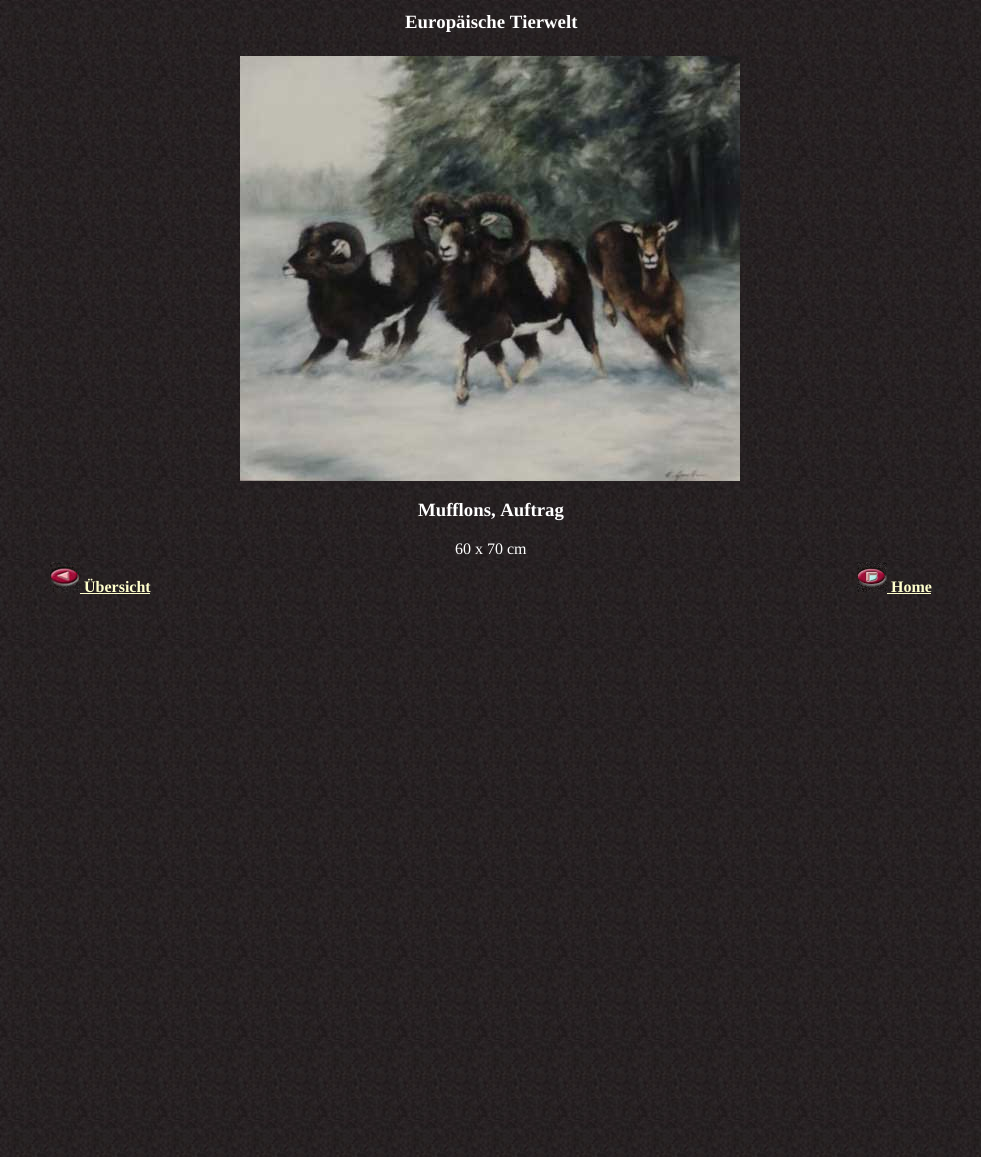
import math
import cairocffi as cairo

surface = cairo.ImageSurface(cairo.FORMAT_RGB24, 981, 1157)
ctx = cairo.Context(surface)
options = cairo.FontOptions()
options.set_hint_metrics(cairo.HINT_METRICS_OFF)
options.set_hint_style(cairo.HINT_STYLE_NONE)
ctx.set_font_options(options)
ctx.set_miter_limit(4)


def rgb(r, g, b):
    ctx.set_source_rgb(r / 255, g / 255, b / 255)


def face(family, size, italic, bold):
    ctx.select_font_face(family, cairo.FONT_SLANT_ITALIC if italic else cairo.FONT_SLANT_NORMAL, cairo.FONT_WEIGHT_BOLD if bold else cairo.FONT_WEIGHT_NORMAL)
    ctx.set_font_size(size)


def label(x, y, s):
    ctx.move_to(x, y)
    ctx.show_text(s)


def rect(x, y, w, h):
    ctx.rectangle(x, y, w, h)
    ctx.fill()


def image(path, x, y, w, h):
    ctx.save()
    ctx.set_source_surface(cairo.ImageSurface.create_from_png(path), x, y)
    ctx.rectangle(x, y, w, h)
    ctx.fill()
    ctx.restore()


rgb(255, 255, 255)
ctx.paint()
image('image0.png', 0, 0, 981, 1157)
face('Liberation Serif', 18.75, 0, 1)
rgb(255, 255, 255)
label(405, 28, 'Europäische Tierwelt')
image('image1.png', 240, 56, 500, 425)
label(418, 516, 'Mufflons, Auftrag')
face('Liberation Serif', 16, 0, 0)
label(455, 554, '60 x 70 cm')
image('image2.png', 50, 562, 30, 30)
face('Liberation Serif', 16, 0, 1)
rgb(255, 255, 204)
label(84, 592, 'Übersicht')
rect(80, 593, 70, 1)
image('image3.png', 857, 562, 30, 30)
label(891, 592, 'Home')
rect(887, 593, 44, 1)
surface.write_to_png('render.png')
